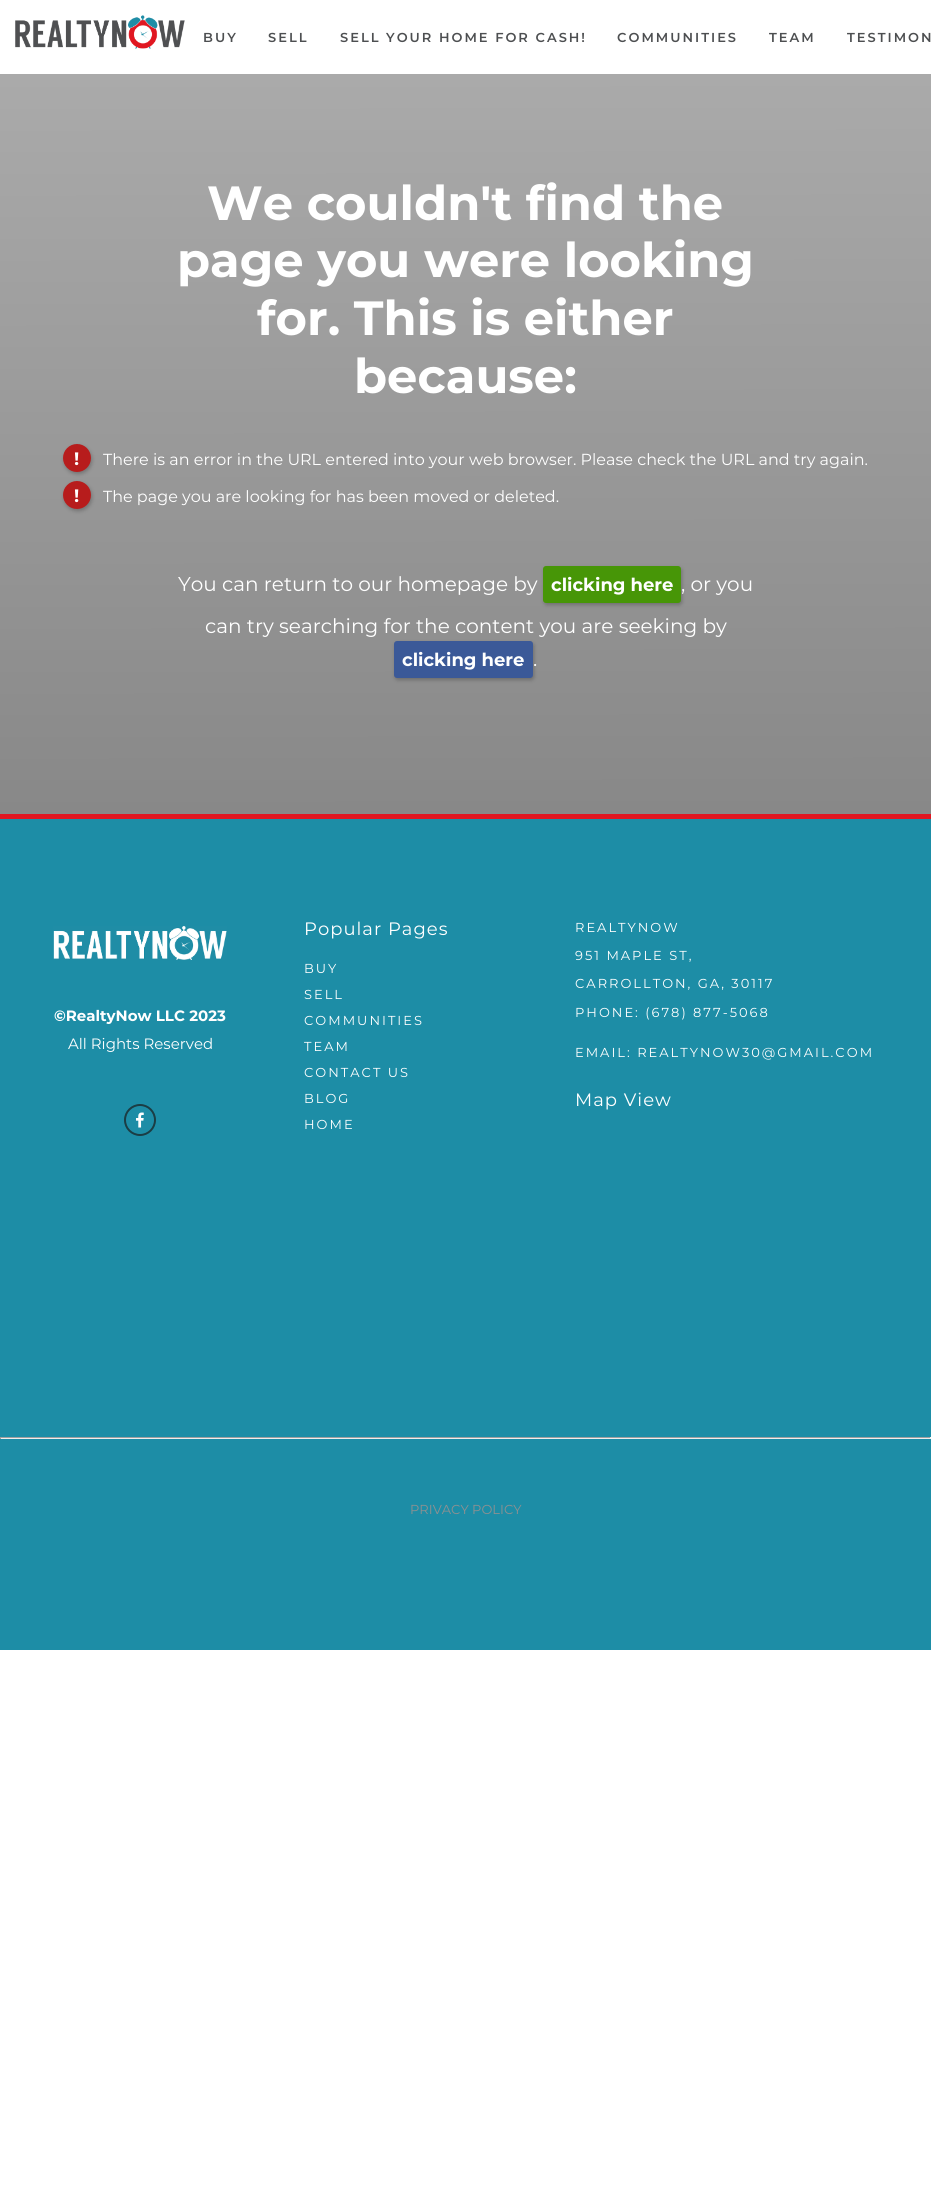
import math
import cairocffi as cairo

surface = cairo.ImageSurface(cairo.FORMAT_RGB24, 931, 2197)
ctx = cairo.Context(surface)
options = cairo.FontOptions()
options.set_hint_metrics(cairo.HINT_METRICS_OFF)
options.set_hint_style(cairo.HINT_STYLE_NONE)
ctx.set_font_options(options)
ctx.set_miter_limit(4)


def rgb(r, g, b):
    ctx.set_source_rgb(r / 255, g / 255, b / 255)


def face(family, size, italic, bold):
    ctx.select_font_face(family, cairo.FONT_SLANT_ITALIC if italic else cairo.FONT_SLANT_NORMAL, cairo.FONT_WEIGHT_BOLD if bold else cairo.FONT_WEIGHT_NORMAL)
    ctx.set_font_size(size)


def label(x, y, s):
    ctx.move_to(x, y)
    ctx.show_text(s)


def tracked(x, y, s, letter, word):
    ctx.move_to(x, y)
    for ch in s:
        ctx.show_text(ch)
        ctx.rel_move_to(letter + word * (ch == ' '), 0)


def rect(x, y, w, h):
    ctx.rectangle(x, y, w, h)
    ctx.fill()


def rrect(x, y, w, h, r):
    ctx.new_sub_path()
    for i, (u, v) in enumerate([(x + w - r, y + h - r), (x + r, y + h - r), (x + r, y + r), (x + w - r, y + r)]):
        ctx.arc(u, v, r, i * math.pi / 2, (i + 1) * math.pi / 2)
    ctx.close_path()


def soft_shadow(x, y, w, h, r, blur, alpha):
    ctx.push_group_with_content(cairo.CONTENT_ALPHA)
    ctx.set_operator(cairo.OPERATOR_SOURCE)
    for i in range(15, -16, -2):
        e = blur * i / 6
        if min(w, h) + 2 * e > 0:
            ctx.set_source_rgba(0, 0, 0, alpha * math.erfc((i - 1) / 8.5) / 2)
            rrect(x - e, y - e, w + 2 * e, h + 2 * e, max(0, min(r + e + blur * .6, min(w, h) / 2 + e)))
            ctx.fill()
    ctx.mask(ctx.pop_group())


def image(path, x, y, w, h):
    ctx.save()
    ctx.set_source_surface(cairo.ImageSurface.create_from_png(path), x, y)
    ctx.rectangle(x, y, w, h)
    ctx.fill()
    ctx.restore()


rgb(255, 255, 255)
ctx.paint()
image('image0.png', 15, 15, 170, 34)
face('Montserrat SemiBold', 13, 0, 0)
rgb(77, 79, 81)
tracked(203, 42, 'BUY', 2, 0)
tracked(268, 42, 'SELL', 2, 0)
tracked(340, 42, 'SELL YOUR HOME FOR CASH!', 2, 0)
tracked(617, 42, 'COMMUNITIES', 2, 0)
tracked(769, 42, 'TEAM', 2, 0)
tracked(847, 42, 'TESTIMON', 2, 0)
gradient = cairo.LinearGradient(465, 74, 466, 814)
gradient.add_color_stop_rgba(0, 0.667, 0.667, 0.667, 1)
gradient.add_color_stop_rgba(1, 0.533, 0.533, 0.533, 1)
ctx.set_source(gradient)
rect(0, 74, 931, 740)
face('Montserrat', 48, 0, 1)
rgb(255, 255, 255)
label(207, 220, 'We couldn\'t find the')
label(177, 277, 'page you were looking')
label(257, 335, 'for. This is either')
label(354, 393, 'because:')
rgb(0, 0, 0)
soft_shadow(64, 446, 28, 28, 14, 2, 0.24)
rgb(183, 28, 28)
ctx.arc(77, 458, 14, 0, 2 * math.pi)
ctx.fill()
face('Montserrat', 18, 0, 1)
rgb(255, 255, 255)
label(74, 465, '!')
face('Montserrat', 16, 0, 0)
label(103, 465, 'There is an error in the URL entered into your web browser. Please check the URL and try again.')
rgb(0, 0, 0)
soft_shadow(64, 483, 28, 28, 14, 2, 0.24)
rgb(183, 28, 28)
ctx.arc(77, 495, 14, 0, 2 * math.pi)
ctx.fill()
face('Montserrat', 18, 0, 1)
rgb(255, 255, 255)
label(74, 502, '!')
face('Montserrat', 16, 0, 0)
label(103, 502, 'The page you are looking for has been moved or deleted.')
face('Montserrat', 20, 0, 0)
label(178, 591, 'You can return to our homepage by')
rgb(0, 0, 0)
soft_shadow(544, 568, 138, 37, 3, 2, 0.24)
rgb(71, 150, 7)
rrect(543, 566, 138, 37, 3)
ctx.fill()
face('Montserrat', 18, 0, 1)
rgb(255, 255, 255)
label(551, 591, 'clicking here')
face('Montserrat', 20, 0, 0)
label(681, 591, ', or you')
label(205, 633, 'can try searching for the content you are seeking by')
rgb(0, 0, 0)
soft_shadow(395, 643, 139, 37, 3, 2, 0.24)
rgb(59, 89, 152)
rrect(394, 641, 139, 37, 3)
ctx.fill()
face('Montserrat', 18, 0, 1)
rgb(255, 255, 255)
label(402, 666, 'clicking here')
face('Montserrat', 20, 0, 0)
label(533, 666, '.')
rgb(29, 141, 166)
rect(0, 819, 931, 831)
rgb(224, 23, 33)
rect(0, 814, 931, 5)
image('image1.png', 53, 926, 174, 34)
face('Montserrat', 15, 0, 1)
rgb(255, 255, 255)
label(54, 1021, '©RealtyNow LLC 2023')
face('Montserrat', 15, 0, 0)
label(68, 1049, 'All Rights Reserved')
ctx.new_path()
ctx.arc(140, 1120, 15, 0, 2 * math.pi)
rgb(27, 61, 68)
ctx.stroke()
image('image2.png', 136, 1112, 8, 16)
face('Montserrat', 18, 0, 0)
rgb(255, 255, 255)
tracked(304, 935, 'Popular Pages', 1, 0)
face('Montserrat', 13, 0, 0)
tracked(304, 973, 'BUY', 2, 0)
tracked(304, 999, 'SELL', 2, 0)
tracked(304, 1025, 'COMMUNITIES', 2, 0)
tracked(304, 1051, 'TEAM', 2, 0)
tracked(304, 1077, 'CONTACT US', 2, 0)
tracked(304, 1103, 'BLOG', 2, 0)
tracked(304, 1129, 'HOME', 2, 0)
tracked(575, 932, 'REALTYNOW', 2, 0)
tracked(575, 960, '951 MAPLE ST,', 2, 0)
tracked(575, 988, 'CARROLLTON, GA, 30117', 2, 0)
tracked(575, 1017, 'PHONE: (678) 877-5068', 2, 0)
tracked(575, 1057, 'EMAIL: REALTYNOW30@GMAIL.COM', 2, 0)
face('Montserrat', 18, 0, 0)
tracked(575, 1106, 'Map View', 1, 0)
rgb(159, 159, 159)
rect(0, 1437, 931, 1)
rgb(238, 238, 238)
rect(930, 1437, 1, 2)
rect(0, 1438, 931, 1)
rgb(159, 159, 159)
rect(0, 1437, 1, 2)
face('Montserrat', 13, 0, 0)
rgb(144, 144, 144)
label(410, 1514, 'PRIVACY POLICY')
surface.write_to_png('render.png')
